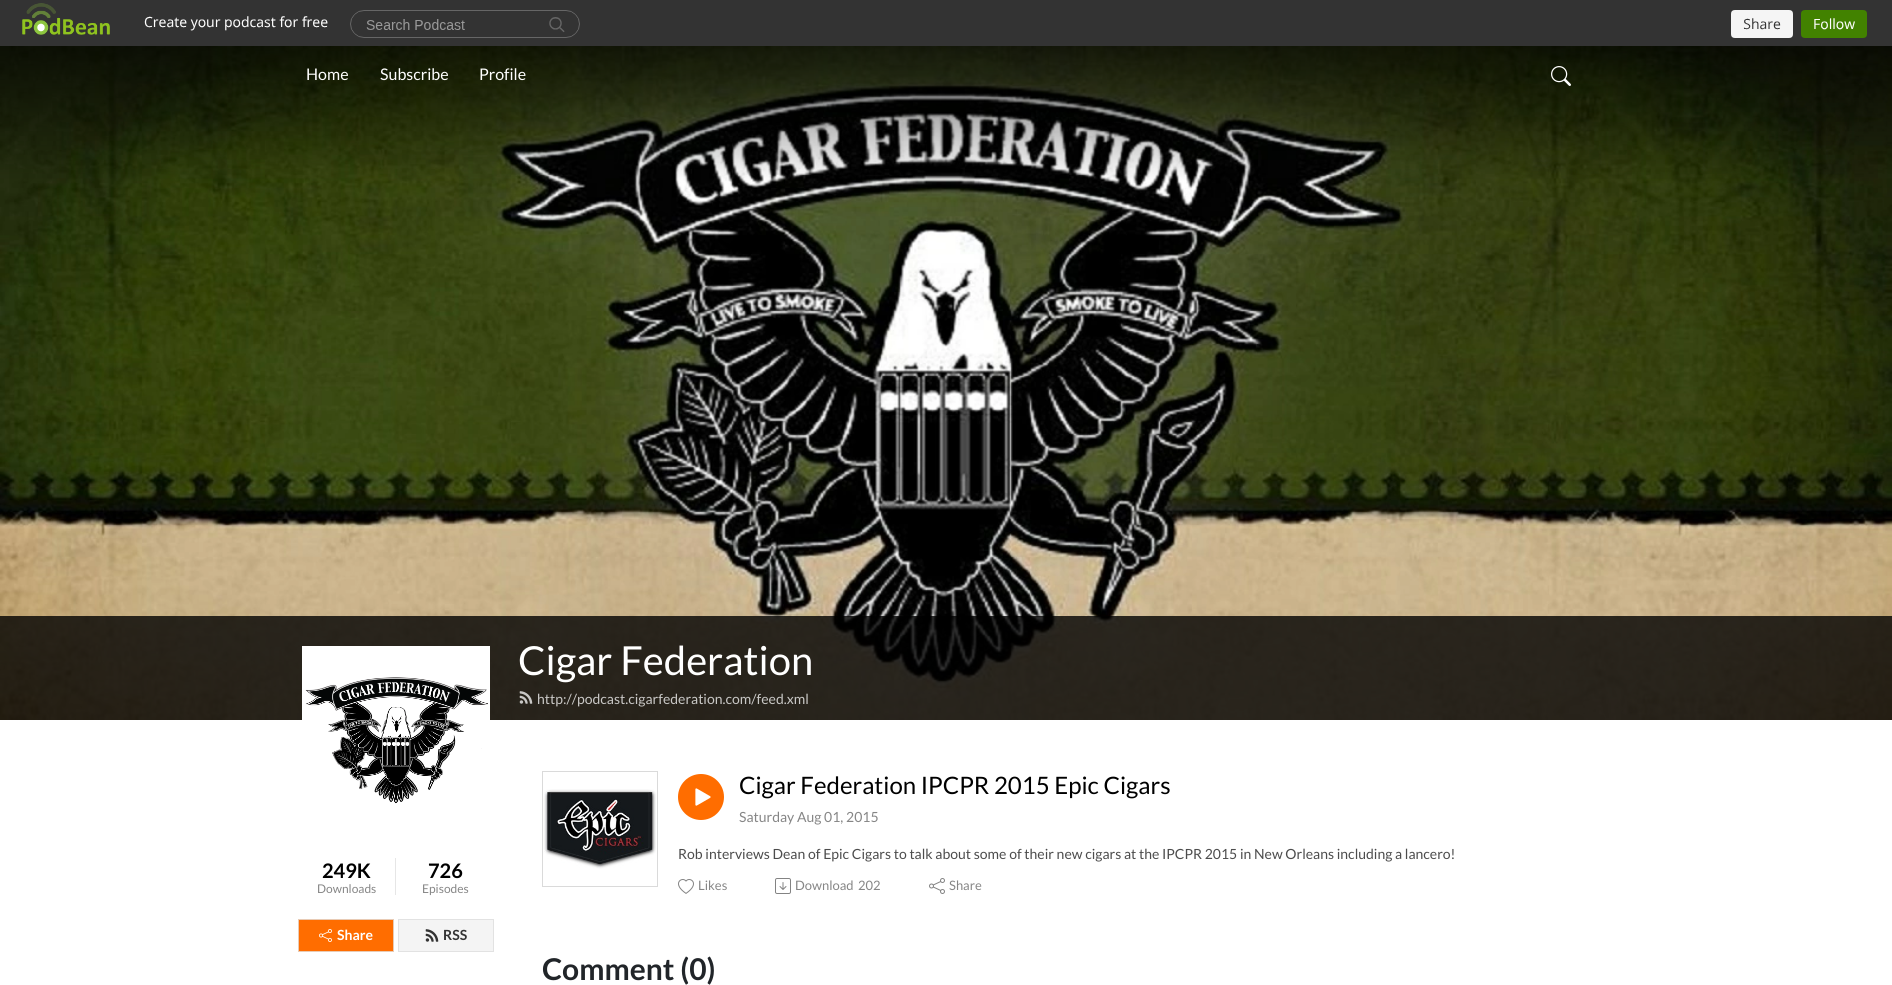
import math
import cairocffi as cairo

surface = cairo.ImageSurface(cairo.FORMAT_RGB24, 1892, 985)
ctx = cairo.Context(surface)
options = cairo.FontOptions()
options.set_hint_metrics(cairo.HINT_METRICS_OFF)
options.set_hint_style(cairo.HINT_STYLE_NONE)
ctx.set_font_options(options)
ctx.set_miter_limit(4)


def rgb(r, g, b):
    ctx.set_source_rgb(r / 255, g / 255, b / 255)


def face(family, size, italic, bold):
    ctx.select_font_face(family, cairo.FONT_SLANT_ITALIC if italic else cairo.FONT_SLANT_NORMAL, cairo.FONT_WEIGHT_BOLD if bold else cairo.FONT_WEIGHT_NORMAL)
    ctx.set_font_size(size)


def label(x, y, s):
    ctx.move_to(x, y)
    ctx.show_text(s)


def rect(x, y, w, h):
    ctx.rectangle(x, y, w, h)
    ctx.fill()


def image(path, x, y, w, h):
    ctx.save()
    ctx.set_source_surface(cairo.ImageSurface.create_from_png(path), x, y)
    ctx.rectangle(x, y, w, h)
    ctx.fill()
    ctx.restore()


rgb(255, 255, 255)
ctx.paint()
rgb(51, 51, 51)
rect(0, 0, 1892, 46)
image('image0.png', 22, 3, 1845, 35)
image('image2.png', 0, 46, 1892, 674)
face('Lato', 16, 0, 0)
rgb(255, 255, 255)
label(306, 80, 'Home')
label(380, 80, 'Subscribe')
label(479, 80, 'Profile')
image('image1.png', 1551, 66, 20, 20)
ctx.set_source_rgba(0, 0, 0, 0.8)
rect(0, 616, 1892, 104)
face('Lato', 40, 0, 0)
rgb(255, 255, 255)
label(518, 675, 'Cigar Federation')
image('image3.png', 519, 691, 14, 13)
face('Lato', 14, 0, 0)
rgb(201, 200, 198)
label(537, 704, 'http://podcast.cigarfederation.com/feed.xml')
ctx.rectangle(303, 647, 186, 186)
rgb(255, 255, 255)
ctx.stroke()
image('image4.png', 304, 648, 184, 156)
face('Lato', 20, 0, 1)
rgb(0, 0, 0)
label(322, 878, '249K')
face('Lato', 12, 0, 0)
rgb(134, 134, 134)
label(317, 893, 'Downloads')
rgb(230, 230, 230)
rect(395, 858, 1, 37)
face('Lato', 20, 0, 1)
rgb(0, 0, 0)
label(428, 878, '726')
face('Lato', 12, 0, 0)
rgb(134, 134, 134)
label(422, 893, 'Episodes')
rgb(255, 109, 0)
ctx.rectangle(298.5, 919.5, 95, 32)
ctx.fill_preserve()
rgb(232, 203, 181)
ctx.set_line_width(1)
ctx.stroke()
image('image5.png', 319, 929, 13, 13)
face('Lato', 14, 0, 1)
rgb(255, 255, 255)
label(337, 940, 'Share')
rgb(244, 244, 244)
ctx.rectangle(398.5, 919.5, 95, 32)
ctx.fill_preserve()
rgb(226, 226, 226)
ctx.stroke()
image('image6.png', 425, 929, 14, 13)
rgb(51, 51, 51)
label(443, 940, 'RSS')
ctx.rectangle(542.5, 771.5, 115, 115)
rgb(218, 218, 218)
ctx.stroke()
image('image7.png', 543, 789, 113, 80)
rgb(255, 109, 0)
ctx.arc(701, 797, 23, 0, 2 * math.pi)
ctx.fill()
image('image8.png', 695, 788, 16, 18)
face('Lato', 24, 0, 0)
rgb(0, 0, 0)
label(739, 794, 'Cigar Federation IPCPR 2015 Epic Cigars')
face('Lato', 14, 0, 0)
rgb(134, 134, 134)
label(739, 822, 'Saturday Aug 01, 2015')
rgb(76, 76, 76)
label(678, 859, 'Rob interviews Dean of Epic Cigars to talk about some of their new cigars at the IPCPR 2015 in New Orleans including a lancero!')
image('image9.png', 678, 879, 16, 15)
face('Lato', 13, 0, 0)
rgb(134, 134, 134)
label(698, 890, 'Likes')
image('image10.png', 775, 878, 16, 16)
label(795, 890, 'Download')
label(858, 890, '202')
image('image11.png', 929, 878, 16, 16)
label(949, 890, 'Share')
face('Lato', 30, 0, 1)
rgb(33, 37, 41)
label(542, 980, 'Comment (0)')
surface.write_to_png('render.png')
